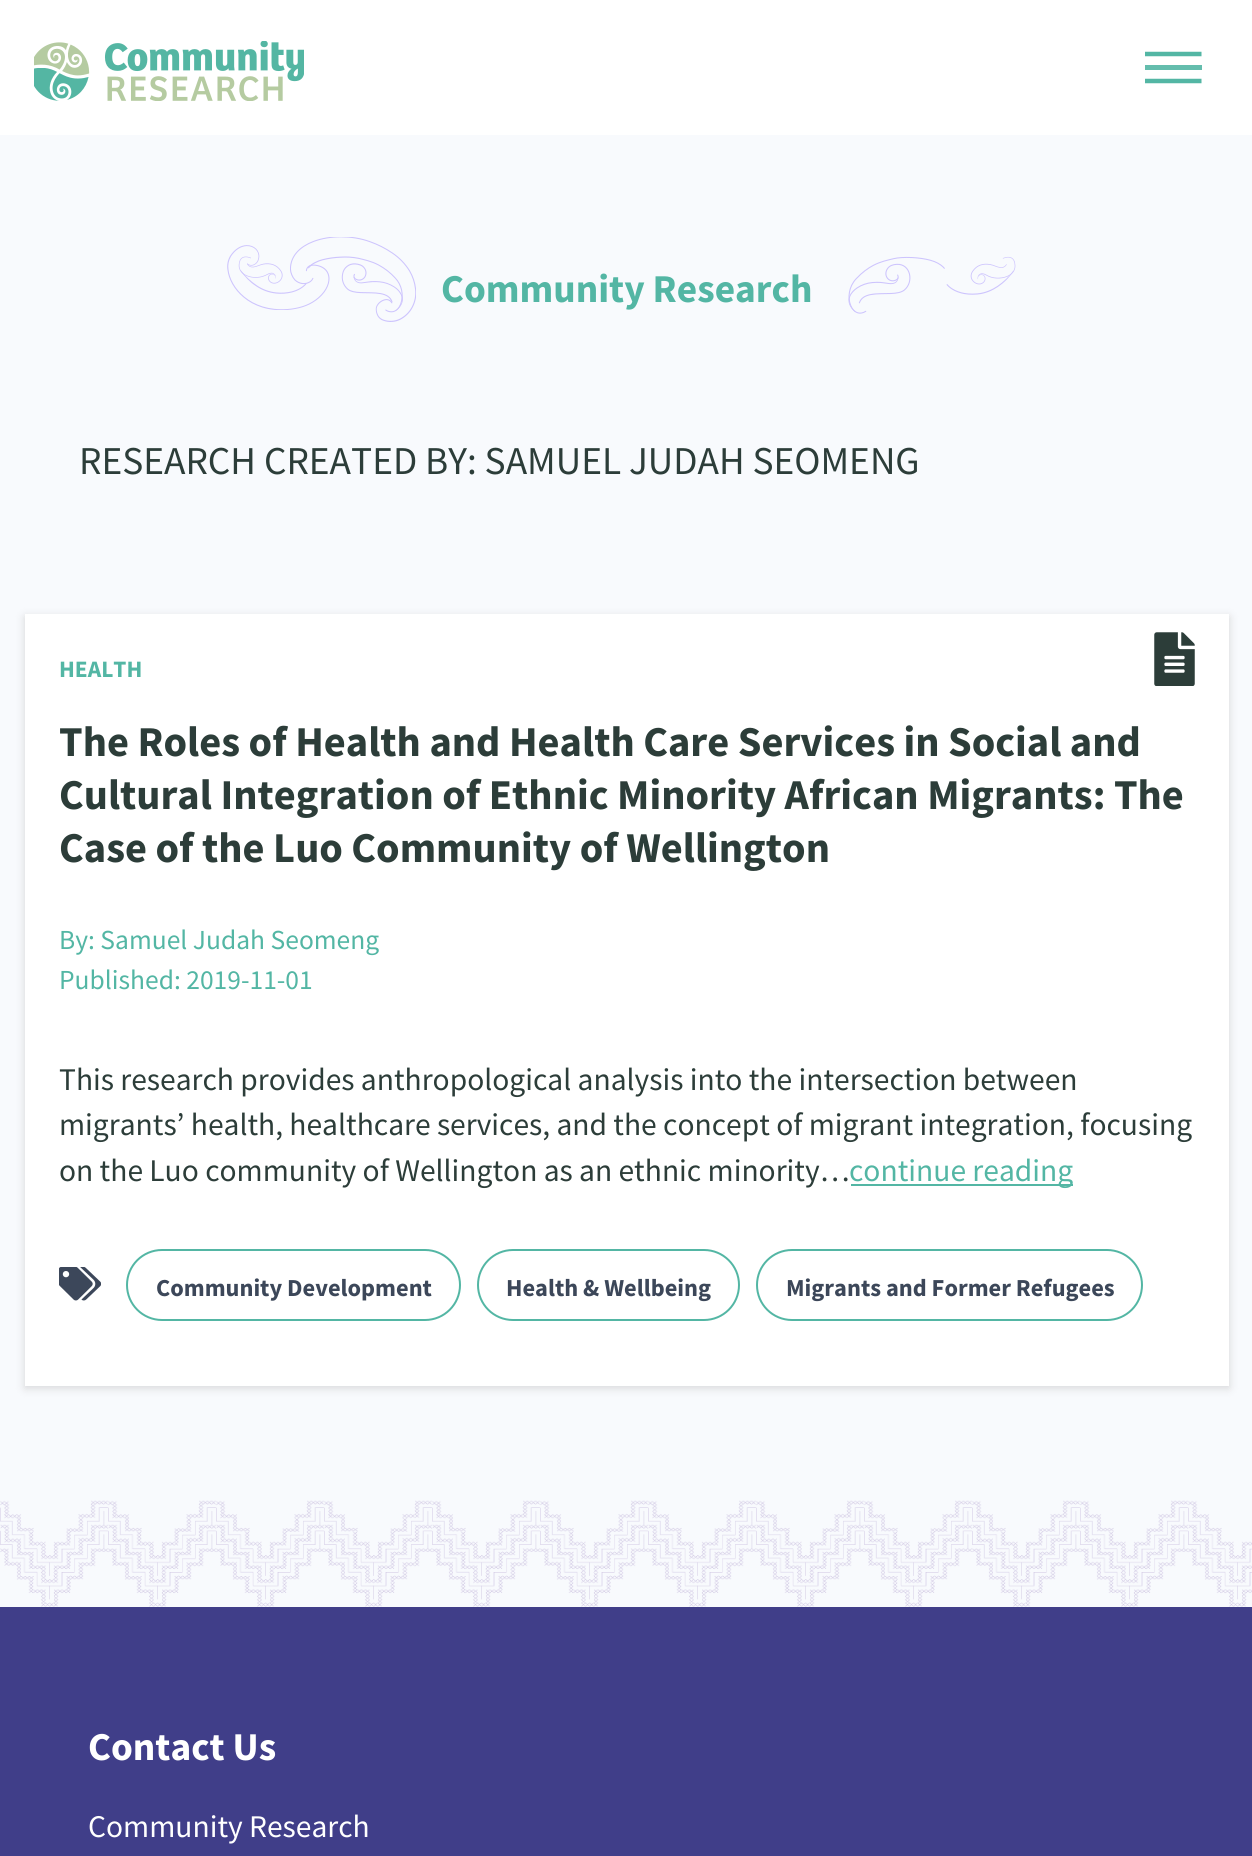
import math
import cairocffi as cairo

surface = cairo.ImageSurface(cairo.FORMAT_RGB24, 1252, 1856)
ctx = cairo.Context(surface)
options = cairo.FontOptions()
options.set_hint_metrics(cairo.HINT_METRICS_OFF)
options.set_hint_style(cairo.HINT_STYLE_NONE)
ctx.set_font_options(options)
ctx.set_miter_limit(4)


def rgb(r, g, b):
    ctx.set_source_rgb(r / 255, g / 255, b / 255)


def face(family, size, italic, bold):
    ctx.select_font_face(family, cairo.FONT_SLANT_ITALIC if italic else cairo.FONT_SLANT_NORMAL, cairo.FONT_WEIGHT_BOLD if bold else cairo.FONT_WEIGHT_NORMAL)
    ctx.set_font_size(size)


def label(x, y, s):
    ctx.move_to(x, y)
    ctx.show_text(s)


def rect(x, y, w, h):
    ctx.rectangle(x, y, w, h)
    ctx.fill()


def rrect(x, y, w, h, r):
    ctx.new_sub_path()
    for i, (u, v) in enumerate([(x + w - r, y + h - r), (x + r, y + h - r), (x + r, y + r), (x + w - r, y + r)]):
        ctx.arc(u, v, r, i * math.pi / 2, (i + 1) * math.pi / 2)
    ctx.close_path()


def soft_shadow(x, y, w, h, r, blur, alpha):
    ctx.push_group_with_content(cairo.CONTENT_ALPHA)
    ctx.set_operator(cairo.OPERATOR_SOURCE)
    for i in range(15, -16, -2):
        e = blur * i / 6
        if min(w, h) + 2 * e > 0:
            ctx.set_source_rgba(0, 0, 0, alpha * math.erfc((i - 1) / 8.5) / 2)
            rrect(x - e, y - e, w + 2 * e, h + 2 * e, max(0, min(r + e + blur * .6, min(w, h) / 2 + e)))
            ctx.fill()
    ctx.mask(ctx.pop_group())


def image(path, x, y, w, h):
    ctx.save()
    ctx.set_source_surface(cairo.ImageSurface.create_from_png(path), x, y)
    ctx.rectangle(x, y, w, h)
    ctx.fill()
    ctx.restore()


rgb(255, 255, 255)
ctx.paint()
image('image0.png', 34, 41, 270, 60)
ctx.new_path()
ctx.move_to(1145, 54)
ctx.line_to(1201.5, 54)
rgb(83, 182, 164)
ctx.set_line_width(4.5)
ctx.stroke()
rgb(100, 189, 173)
rect(1145, 65, 57, 5)
ctx.new_path()
ctx.move_to(1145, 81)
ctx.line_to(1201.5, 81)
rgb(83, 182, 164)
ctx.stroke()
rgb(248, 250, 253)
rect(0, 135, 1252, 1472)
image('image1.png', 227, 237, 189, 85)
face('Source Sans Pro', 39.4, 0, 1)
rgb(83, 182, 164)
label(441, 302, 'Community Research')
image('image2.png', 848, 256, 168, 58)
face('Source Sans Pro', 39.4, 0, 0)
rgb(44, 61, 57)
label(79, 474, 'RESEARCH CREATED BY: SAMUEL JUDAH SEOMENG')
rgb(180, 178, 178)
soft_shadow(25, 617, 1204, 771, 0, 4.5, 0.5)
rgb(255, 255, 255)
rect(25, 614, 1204, 772)
image('image3.png', 1154, 632, 41, 54)
face('Source Sans Pro', 23.5, 0, 1)
rgb(83, 182, 164)
label(59, 677, 'HEALTH')
face('Source Sans Pro', 42.5, 0, 1)
rgb(44, 61, 57)
label(59, 756, 'The Roles of Health and Health Care Services in Social and')
label(59, 809, 'Cultural Integration of Ethnic Minority African Migrants: The')
label(59, 862, 'Case of the Luo Community of Wellington')
face('Source Sans Pro', 27.5, 0, 0)
rgb(83, 182, 164)
label(59, 949, 'By: Samuel Judah Seomeng')
label(59, 989, 'Published: 2019-11-01')
face('Source Sans Pro', 31.5, 0, 0)
rgb(44, 61, 57)
label(59, 1090, 'This research provides anthropological analysis into the intersection between')
label(59, 1135, 'migrants’ health, healthcare services, and the concept of migrant integration, focusing')
label(59, 1181, 'on the Luo community of Wellington as an ethnic minority…')
rgb(83, 182, 164)
rect(851, 1184, 222, 2)
label(849, 1181, 'continue reading')
image('image4.png', 59, 1267, 42, 34)
rrect(127, 1250, 333, 70, 35)
ctx.set_line_width(2)
ctx.stroke()
face('Source Sans Pro', 24.4, 0, 1)
rgb(60, 71, 89)
label(156, 1296, 'Community Development')
rrect(478, 1250, 261, 70, 35)
rgb(83, 182, 164)
ctx.stroke()
rgb(60, 71, 89)
label(506, 1296, 'Health & Wellbeing')
rrect(757, 1250, 385, 70, 35)
rgb(83, 182, 164)
ctx.stroke()
rgb(60, 71, 89)
label(786, 1296, 'Migrants and Former Refugees')
rgb(64, 62, 137)
rect(0, 1607, 1252, 249)
image('image5.png', 0, 1500, 1252, 107)
face('Source Sans Pro', 39.4, 0, 1)
rgb(255, 255, 255)
label(88, 1760, 'Contact Us')
face('Source Sans Pro', 31.5, 0, 0)
label(88, 1837, 'Community Research')
surface.write_to_png('render.png')
